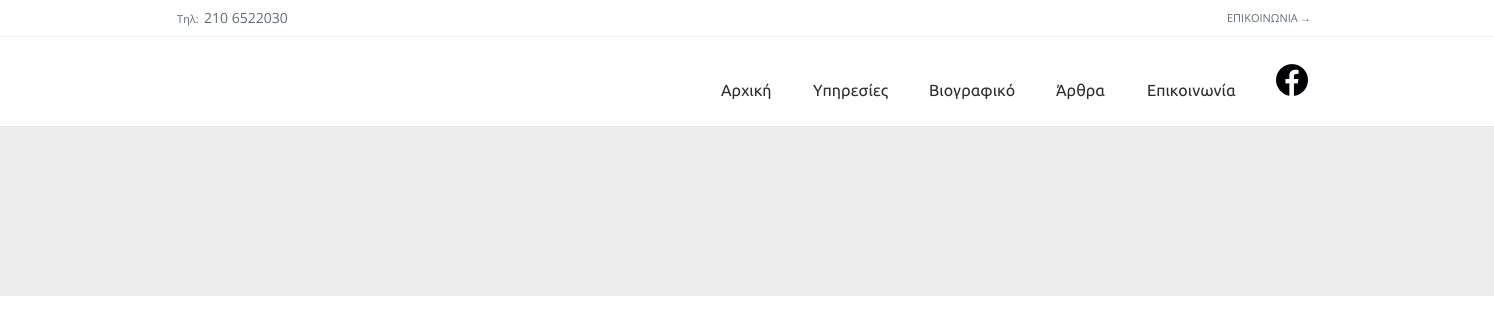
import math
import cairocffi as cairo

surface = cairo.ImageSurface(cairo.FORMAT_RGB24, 1494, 309)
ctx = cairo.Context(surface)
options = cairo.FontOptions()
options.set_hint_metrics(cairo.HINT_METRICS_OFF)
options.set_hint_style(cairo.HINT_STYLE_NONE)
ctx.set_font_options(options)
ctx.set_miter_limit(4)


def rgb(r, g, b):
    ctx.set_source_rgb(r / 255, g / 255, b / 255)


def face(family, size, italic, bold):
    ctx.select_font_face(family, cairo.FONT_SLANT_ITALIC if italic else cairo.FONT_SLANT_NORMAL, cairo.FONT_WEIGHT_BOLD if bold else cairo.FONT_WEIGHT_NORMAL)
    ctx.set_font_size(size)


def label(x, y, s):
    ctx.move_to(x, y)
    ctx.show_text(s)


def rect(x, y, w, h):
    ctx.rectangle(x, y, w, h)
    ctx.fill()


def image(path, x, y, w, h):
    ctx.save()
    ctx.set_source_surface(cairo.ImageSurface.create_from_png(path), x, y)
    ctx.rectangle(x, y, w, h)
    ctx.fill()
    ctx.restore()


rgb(237, 237, 237)
ctx.paint()
rgb(255, 255, 255)
rect(0, 0, 1494, 126)
rgb(232, 232, 232)
rect(0, 126, 1494, 1)
rgb(237, 237, 237)
rect(0, 36, 1494, 1)
face('Open Sans', 11, 0, 0)
rgb(101, 107, 121)
label(177, 23, 'Τηλ:')
face('Open Sans', 14, 0, 0)
rgb(100, 107, 114)
label(204, 23, '210 6522030')
face('Open Sans', 11, 0, 0)
label(1227, 22, 'ΕΠΙΚΟΙΝΩΝΙΑ')
face('Liberation Serif', 11, 0, 0)
label(1300, 22, '→')
face('Ubuntu', 16, 0, 0)
rgb(44, 44, 44)
label(721, 96, 'Αρχική')
label(813, 96, 'Υπηρεσίες')
label(929, 96, 'Βιογραφικό')
label(1056, 96, 'Άρθρα')
label(1147, 96, 'Επικοινωνία')
image('image0.png', 1276, 64, 32, 32)
rgb(255, 255, 255)
rect(0, 296, 1494, 13)
surface.write_to_png('render.png')
